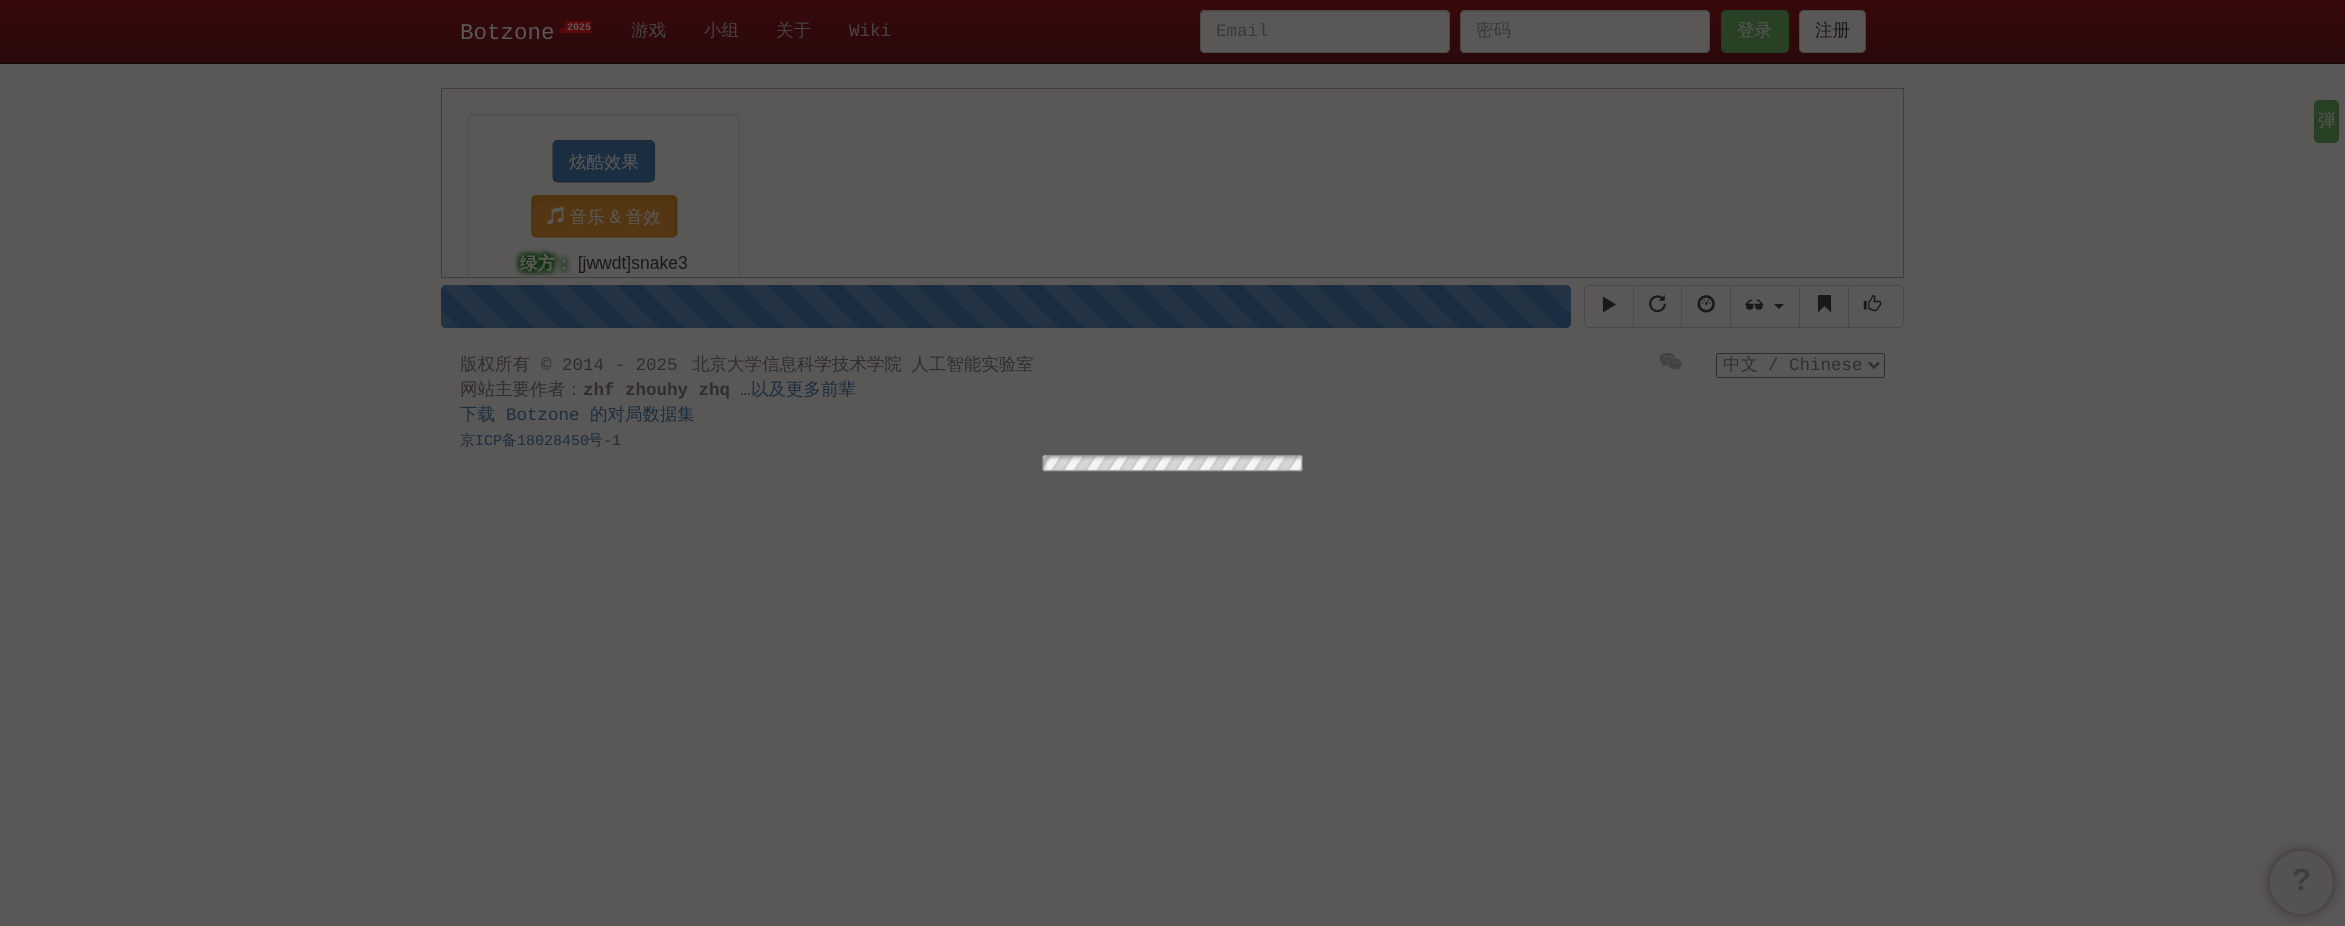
import math
import cairocffi as cairo

surface = cairo.ImageSurface(cairo.FORMAT_RGB24, 2345, 926)
ctx = cairo.Context(surface)
options = cairo.FontOptions()
options.set_hint_metrics(cairo.HINT_METRICS_OFF)
options.set_hint_style(cairo.HINT_STYLE_NONE)
ctx.set_font_options(options)
ctx.set_miter_limit(4)


def rgb(r, g, b):
    ctx.set_source_rgb(r / 255, g / 255, b / 255)


def face(family, size, italic, bold):
    ctx.select_font_face(family, cairo.FONT_SLANT_ITALIC if italic else cairo.FONT_SLANT_NORMAL, cairo.FONT_WEIGHT_BOLD if bold else cairo.FONT_WEIGHT_NORMAL)
    ctx.set_font_size(size)


def label(x, y, s):
    ctx.move_to(x, y)
    ctx.show_text(s)


def tracked(x, y, s, letter, word):
    ctx.move_to(x, y)
    for ch in s:
        ctx.show_text(ch)
        ctx.rel_move_to(letter + word * (ch == ' '), 0)


def rect(x, y, w, h):
    ctx.rectangle(x, y, w, h)
    ctx.fill()


def rrect(x, y, w, h, r):
    ctx.new_sub_path()
    for i, (u, v) in enumerate([(x + w - r, y + h - r), (x + r, y + h - r), (x + r, y + r), (x + w - r, y + r)]):
        ctx.arc(u, v, r, i * math.pi / 2, (i + 1) * math.pi / 2)
    ctx.close_path()


def soft_shadow(x, y, w, h, r, blur, alpha):
    ctx.push_group_with_content(cairo.CONTENT_ALPHA)
    ctx.set_operator(cairo.OPERATOR_SOURCE)
    for i in range(15, -16, -2):
        e = blur * i / 6
        if min(w, h) + 2 * e > 0:
            ctx.set_source_rgba(0, 0, 0, alpha * math.erfc((i - 1) / 8.5) / 2)
            rrect(x - e, y - e, w + 2 * e, h + 2 * e, max(0, min(r + e + blur * .6, min(w, h) / 2 + e)))
            ctx.fill()
    ctx.mask(ctx.pop_group())


def image(path, x, y, w, h):
    ctx.save()
    ctx.set_source_surface(cairo.ImageSurface.create_from_png(path), x, y)
    ctx.rectangle(x, y, w, h)
    ctx.fill()
    ctx.restore()


rgb(90, 87, 87)
ctx.paint()
gradient = cairo.LinearGradient(1173, 0, 1173, 63)
gradient.add_color_stop_rgba(0, 0.22, 0.035, 0.043, 1)
gradient.add_color_stop_rgba(1, 0.161, 0.035, 0.039, 1)
ctx.set_source(gradient)
rect(0, 0, 2345, 63)
rgb(14, 11, 11)
rect(0, 63, 2345, 1)
face('Liberation Mono', 22.5, 0, 0)
rgb(90, 87, 87)
label(460, 39, 'Botzone')
rgb(90, 8, 8)
ctx.new_path()
ctx.move_to(567.5, 21)
ctx.line_to(591, 21)
ctx.line_to(591, 33)
ctx.line_to(565, 33)
ctx.line_to(565, 23.5)
ctx.curve_to(565, 22, 566, 21, 567.5, 21)
ctx.close_path()
ctx.fill()
ctx.new_path()
ctx.move_to(560, 28)
ctx.line_to(565.5, 28)
ctx.curve_to(567, 28, 568, 29, 568, 30.5)
ctx.curve_to(568, 32, 567, 33, 565.5, 33)
ctx.line_to(560, 33)
ctx.close_path()
ctx.fill()
ctx.new_path()
ctx.move_to(565, 27.5)
ctx.line_to(565, 32.5)
ctx.line_to(562.5, 30)
ctx.close_path()
ctx.fill()
face('Liberation Mono', 10, 0, 1)
rgb(90, 87, 87)
label(567, 30, '2025')
face('WenQuanYi Zen Hei Medium', 17.5, 0, 0)
rgb(71, 68, 68)
label(631, 36, '游戏')
label(704, 36, '小组')
label(776, 36, '关于')
face('Liberation Mono', 17.5, 0, 0)
label(849, 36, 'Wiki')
rgb(90, 87, 87)
rrect(1200, 10, 250, 43, 5)
ctx.fill()
rgb(84, 81, 81)
ctx.new_path()
ctx.move_to(1205, 12)
ctx.line_to(1445, 12)
ctx.curve_to(1447, 12, 1449, 14, 1449, 16)
ctx.line_to(1449, 15)
ctx.curve_to(1449, 13, 1447, 11, 1445, 11)
ctx.line_to(1205, 11)
ctx.curve_to(1203, 11, 1201, 13, 1201, 15)
ctx.line_to(1201, 16)
ctx.curve_to(1201, 14, 1203, 12, 1205, 12)
ctx.close_path()
ctx.fill()
rrect(1200.5, 10.5, 249, 42, 4.5)
rgb(74, 72, 72)
ctx.set_line_width(1)
ctx.stroke()
rgb(58, 56, 56)
label(1216, 36, 'Email')
rgb(90, 87, 87)
rrect(1460, 10, 250, 43, 5)
ctx.fill()
rgb(84, 81, 81)
ctx.new_path()
ctx.move_to(1465, 12)
ctx.line_to(1705, 12)
ctx.curve_to(1707, 12, 1709, 14, 1709, 16)
ctx.line_to(1709, 15)
ctx.curve_to(1709, 13, 1707, 11, 1705, 11)
ctx.line_to(1465, 11)
ctx.curve_to(1463, 11, 1461, 13, 1461, 15)
ctx.line_to(1461, 16)
ctx.curve_to(1461, 14, 1463, 12, 1465, 12)
ctx.close_path()
ctx.fill()
rrect(1460.5, 10.5, 249, 42, 4.5)
rgb(74, 72, 72)
ctx.stroke()
face('WenQuanYi Zen Hei Medium', 17.5, 0, 0)
rgb(58, 56, 56)
label(1476, 36, '密码')
rgb(40, 65, 37)
rrect(1721.5, 10.5, 67, 42, 4.5)
ctx.fill_preserve()
rgb(35, 62, 32)
ctx.stroke()
rgb(90, 87, 87)
label(1737, 36, '登录')
rrect(1799.5, 10.5, 66, 42, 4.5)
ctx.fill_preserve()
rgb(74, 72, 72)
ctx.stroke()
rgb(27, 24, 24)
label(1815, 36, '注册')
ctx.rectangle(441.5, 88.5, 1462, 189)
rgb(64, 61, 61)
ctx.stroke()
image('image0.png', 443, 88, 1459, 189)
rgb(40, 65, 37)
rrect(2314.5, 100.5, 24, 42, 4.5)
ctx.fill_preserve()
rgb(35, 62, 32)
ctx.stroke()
rgb(90, 87, 87)
label(2318, 126, '弾')
rgb(27, 46, 65)
rrect(441, 285, 1130, 43, 5)
ctx.fill()
image('image1.png', 441, 285, 1130, 43)
ctx.save()
rrect(441, 285, 1130, 43, 5)
ctx.clip()
ctx.set_source_rgba(0.043, 0.031, 0.031, 0.15)
rect(441, 326, 1130, 1)
ctx.restore()
ctx.new_path()
ctx.move_to(1589, 285.5)
ctx.line_to(1633.5, 285.5)
ctx.line_to(1633.5, 327.5)
ctx.line_to(1589, 327.5)
ctx.curve_to(1586.5, 327.5, 1584.5, 325.5, 1584.5, 323)
ctx.line_to(1584.5, 290)
ctx.curve_to(1584.5, 287.5, 1586.5, 285.5, 1589, 285.5)
ctx.close_path()
rgb(74, 72, 72)
ctx.stroke()
image('image2.png', 1602, 296, 14, 17)
ctx.rectangle(1633.5, 285.5, 49, 42)
ctx.stroke()
image('image3.png', 1649, 295, 17, 18)
rgb(90, 87, 87)
rect(1682, 286, 1, 41)
ctx.rectangle(1681.5, 285.5, 49, 42)
rgb(74, 72, 72)
ctx.stroke()
image('image4.png', 1697, 295, 18, 18)
ctx.rectangle(1730.5, 285.5, 69, 42)
ctx.stroke()
image('image5.png', 1745, 299, 19, 11)
rgb(27, 24, 24)
ctx.new_path()
ctx.move_to(1774, 304)
ctx.line_to(1784, 304)
ctx.line_to(1779, 309)
ctx.close_path()
ctx.fill()
ctx.rectangle(1799.5, 285.5, 49, 42)
rgb(74, 72, 72)
ctx.stroke()
image('image6.png', 1817, 295, 15, 18)
rgb(90, 87, 87)
ctx.new_path()
ctx.move_to(1848.5, 285.5)
ctx.line_to(1899, 285.5)
ctx.curve_to(1901.5, 285.5, 1903.5, 287.5, 1903.5, 290)
ctx.line_to(1903.5, 323)
ctx.curve_to(1903.5, 325.5, 1901.5, 327.5, 1899, 327.5)
ctx.line_to(1848.5, 327.5)
ctx.close_path()
ctx.fill_preserve()
rgb(74, 72, 72)
ctx.stroke()
image('image7.png', 1863, 295, 19, 17)
rgb(48, 45, 45)
label(460, 370, '版权所有')
face('Liberation Mono', 17.5, 0, 0)
label(541, 370, '© 2014 - 2025')
face('WenQuanYi Zen Hei Medium', 17.5, 0, 0)
tracked(692, 370, '北京大学信息科学技术学院 人工智能实验室', 0, 4)
image('image8.png', 1659, 353, 23, 17)
rrect(1716.5, 353.5, 168, 24, 2)
ctx.stroke()
ctx.new_path()
ctx.move_to(1869, 362.5)
ctx.line_to(1874, 367.5)
ctx.line_to(1879, 362.5)
ctx.set_line_width(2.5)
ctx.stroke()
label(1723, 370, '中文')
face('Liberation Mono', 17.5, 0, 0)
label(1768, 370, '/ Chinese')
face('WenQuanYi Zen Hei Medium', 17.5, 0, 0)
label(460, 395, '网站主要作者：')
face('Liberation Mono', 17.5, 0, 1)
label(583, 395, 'zhf zhouhy zhq')
face('Liberation Mono', 17.5, 0, 0)
rgb(27, 46, 65)
label(740, 395, '…')
face('WenQuanYi Zen Hei Medium', 17.5, 0, 0)
label(751, 395, '以及更多前辈')
label(460, 420, '下载')
face('Liberation Mono', 17.5, 0, 0)
label(506, 420, 'Botzone')
face('WenQuanYi Zen Hei Medium', 17.5, 0, 0)
label(590, 420, '的对局数据集')
face('WenQuanYi Zen Hei Medium', 15, 0, 0)
label(460, 445, '京')
face('Liberation Mono', 15, 0, 0)
label(475, 445, 'ICP')
face('WenQuanYi Zen Hei Medium', 15, 0, 0)
label(502, 445, '备')
face('Liberation Mono', 15, 0, 0)
label(517, 445, '18028450')
face('WenQuanYi Zen Hei Medium', 15, 0, 0)
label(588, 445, '号')
face('Liberation Mono', 15, 0, 0)
label(603, 445, '-1')
image('image9.png', 1042, 454, 261, 18)
rgb(53, 50, 50)
soft_shadow(2270, 851, 63, 63, 31.5, 6, 1)
rgb(85, 82, 82)
ctx.arc(2301.5, 882.5, 31.5, 0, 2 * math.pi)
ctx.fill()
face('Liberation Mono', 32, 0, 1)
rgb(64, 61, 61)
label(2292, 890, '?')
surface.write_to_png('render.png')
